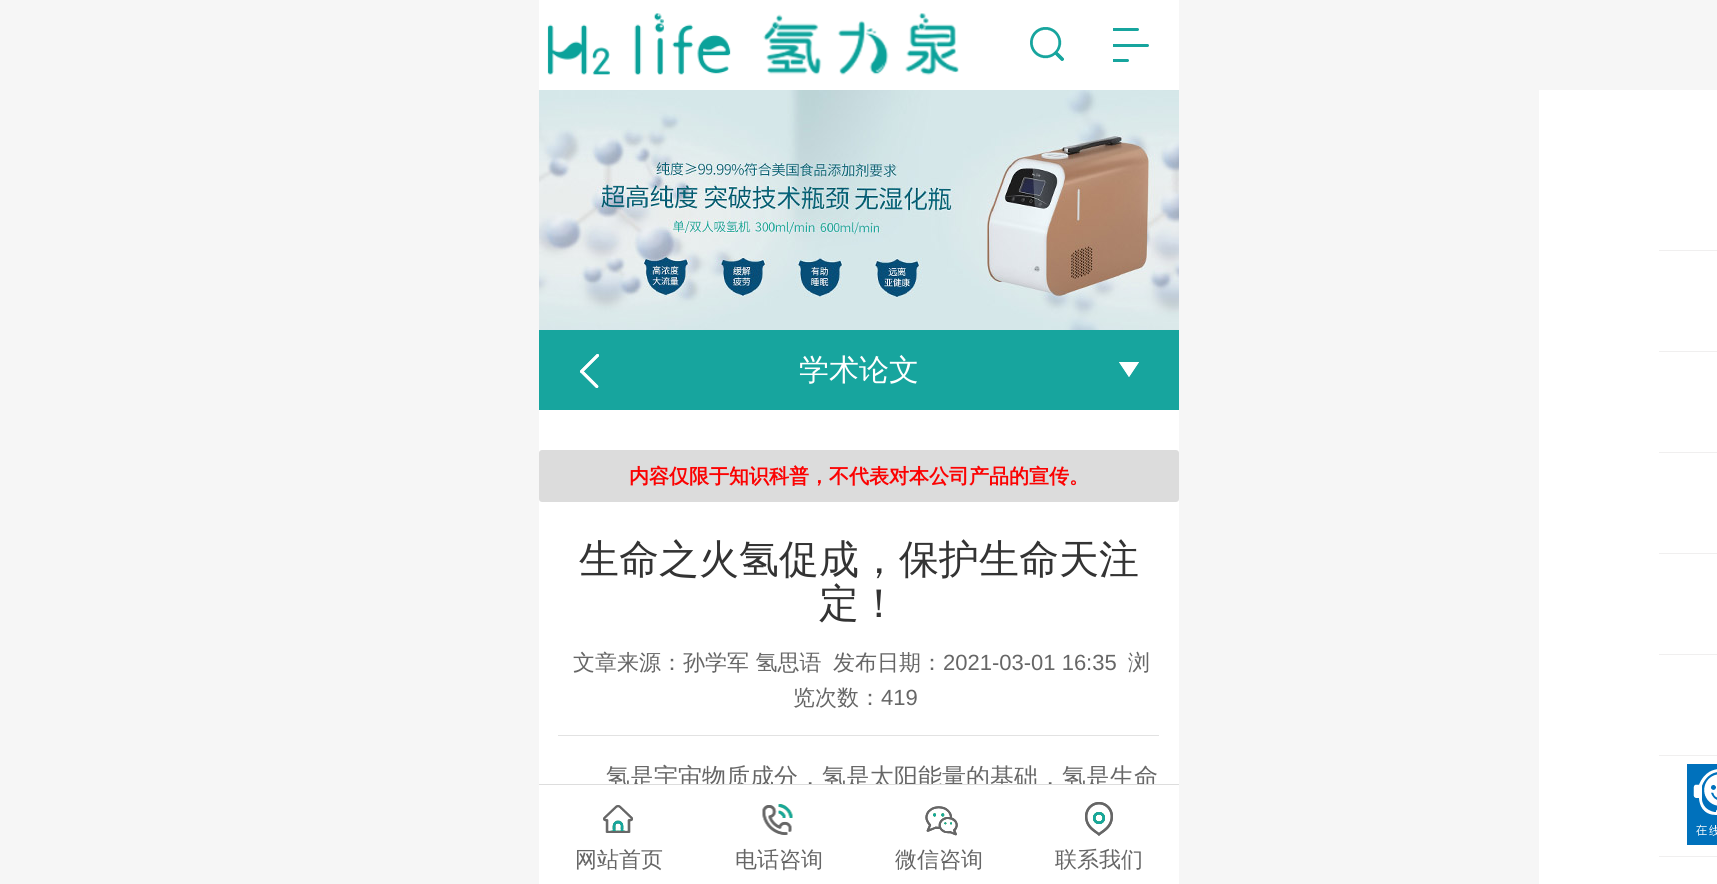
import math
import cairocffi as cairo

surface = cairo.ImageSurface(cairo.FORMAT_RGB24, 1717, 884)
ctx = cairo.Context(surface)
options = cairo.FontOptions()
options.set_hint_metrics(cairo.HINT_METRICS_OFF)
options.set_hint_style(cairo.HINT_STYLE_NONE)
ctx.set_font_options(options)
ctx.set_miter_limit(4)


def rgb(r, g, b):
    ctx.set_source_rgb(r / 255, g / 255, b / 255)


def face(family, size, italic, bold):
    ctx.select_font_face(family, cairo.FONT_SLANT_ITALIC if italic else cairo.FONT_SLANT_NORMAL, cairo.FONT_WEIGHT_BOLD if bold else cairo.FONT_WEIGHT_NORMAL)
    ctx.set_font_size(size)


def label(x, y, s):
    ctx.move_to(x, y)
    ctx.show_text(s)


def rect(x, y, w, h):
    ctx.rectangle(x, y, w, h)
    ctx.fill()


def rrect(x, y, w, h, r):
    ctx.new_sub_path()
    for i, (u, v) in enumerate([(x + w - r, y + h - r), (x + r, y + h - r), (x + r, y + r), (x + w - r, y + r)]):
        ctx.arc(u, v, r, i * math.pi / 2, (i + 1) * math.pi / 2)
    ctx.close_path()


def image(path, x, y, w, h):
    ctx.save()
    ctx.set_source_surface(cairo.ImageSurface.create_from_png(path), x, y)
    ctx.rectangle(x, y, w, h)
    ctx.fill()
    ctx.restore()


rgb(246, 246, 246)
ctx.paint()
rgb(255, 255, 255)
rect(539, 0, 640, 90)
image('image0.png', 547, 13, 412, 63)
image('image1.png', 1030, 27, 34, 34)
image('image2.png', 1113, 28, 36, 34)
image('image3.png', 539, 90, 640, 240)
rect(1539, 90, 178, 794)
rgb(240, 239, 239)
rect(1659, 250, 58, 1)
rect(1659, 351, 58, 1)
rect(1659, 452, 58, 1)
rect(1659, 553, 58, 1)
rect(1659, 654, 58, 1)
rect(1659, 755, 58, 1)
rect(1659, 856, 58, 1)
rgb(23, 165, 158)
rect(539, 330, 640, 80)
image('image4.png', 580, 354, 19, 34)
face('WenQuanYi Zen Hei Medium', 30, 0, 0)
rgb(255, 255, 255)
label(799, 380, '学术论文')
image('image5.png', 1119, 362, 20, 15)
rect(539, 410, 640, 374)
rgb(220, 220, 220)
rrect(539, 450, 640, 52, 3)
ctx.fill()
face('WenQuanYi Zen Hei', 20, 0, 1)
rgb(251, 2, 2)
label(629, 483, '内容仅限于知识科普，不代表对本公司产品的宣传。')
face('WenQuanYi Zen Hei Medium', 40, 0, 0)
rgb(51, 51, 51)
label(579, 573, '生命之火氢促成，保护生命天注')
label(819, 617, '定！')
rgb(226, 226, 226)
rect(558, 735, 601, 1)
face('WenQuanYi Zen Hei Medium', 22, 0, 0)
rgb(102, 102, 102)
label(573, 670, '文章来源：孙学军 氢思语')
label(833, 670, '发布日期：')
face('Liberation Sans', 22, 0, 0)
label(943, 670, '2021-03-01 16:35')
face('WenQuanYi Zen Hei Medium', 22, 0, 0)
label(1128, 670, '浏')
label(793, 705, '览次数：')
face('Liberation Sans', 22, 0, 0)
label(881, 705, '419')
face('WenQuanYi Zen Hei Medium', 24, 0, 0)
label(606, 785, '氢是宇宙物质成分，氢是太阳能量的基础，氢是生命')
image('image6.png', 1687, 764, 30, 81)
rgb(255, 255, 255)
rect(539, 785, 640, 99)
rgb(221, 221, 221)
rect(539, 784, 640, 1)
image('image7.png', 603, 805, 30, 28)
face('WenQuanYi Zen Hei Medium', 22, 0, 0)
rgb(102, 102, 102)
label(575, 867, '网站首页')
image('image8.png', 762, 804, 31, 31)
label(735, 867, '电话咨询')
image('image9.png', 925, 806, 33, 30)
label(895, 867, '微信咨询')
image('image10.png', 1085, 802, 28, 34)
label(1055, 867, '联系我们')
surface.write_to_png('render.png')
